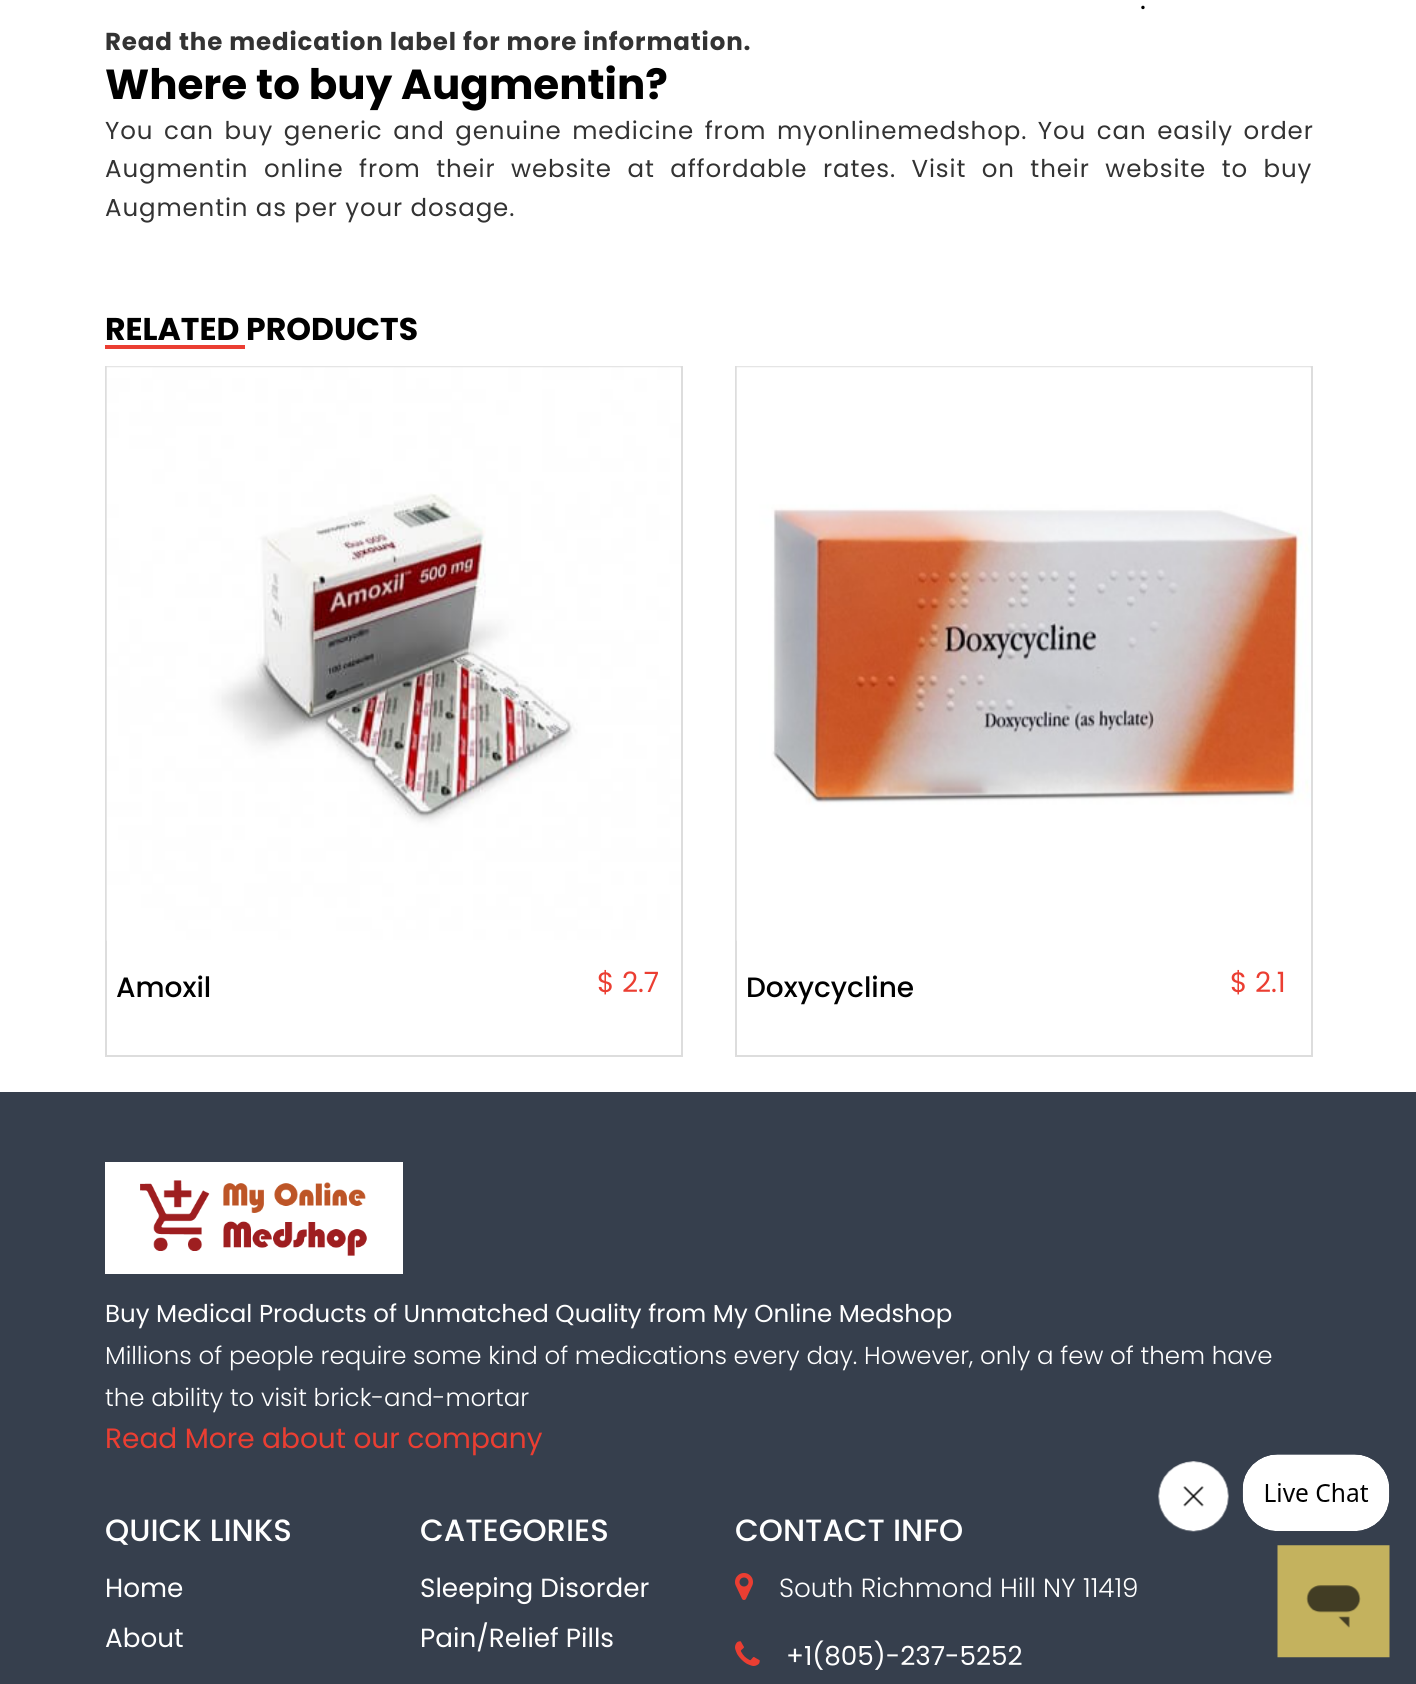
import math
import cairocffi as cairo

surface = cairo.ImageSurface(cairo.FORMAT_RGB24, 1416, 1684)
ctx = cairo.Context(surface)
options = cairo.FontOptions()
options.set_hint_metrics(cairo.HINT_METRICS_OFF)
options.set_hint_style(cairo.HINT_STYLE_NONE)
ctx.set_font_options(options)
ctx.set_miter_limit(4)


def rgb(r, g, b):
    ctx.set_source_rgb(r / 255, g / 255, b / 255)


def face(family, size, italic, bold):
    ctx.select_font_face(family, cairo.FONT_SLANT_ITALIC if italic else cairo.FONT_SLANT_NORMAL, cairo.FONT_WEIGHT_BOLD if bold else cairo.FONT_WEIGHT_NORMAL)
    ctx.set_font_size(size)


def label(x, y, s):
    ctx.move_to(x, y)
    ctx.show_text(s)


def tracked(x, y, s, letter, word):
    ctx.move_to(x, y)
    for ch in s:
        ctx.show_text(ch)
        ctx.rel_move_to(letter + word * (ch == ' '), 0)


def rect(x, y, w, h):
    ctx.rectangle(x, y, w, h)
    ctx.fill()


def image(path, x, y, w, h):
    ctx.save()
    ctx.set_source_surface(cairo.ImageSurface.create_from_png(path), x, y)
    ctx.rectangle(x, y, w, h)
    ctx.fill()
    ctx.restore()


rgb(255, 255, 255)
ctx.paint()
face('Poppins', 28, 0, 0)
rgb(0, 0, 0)
label(1140, 9, '.')
face('Poppins', 24.5, 0, 1)
rgb(51, 51, 51)
tracked(105, 50, 'Read the medication label for more information.', 0.88, 0)
face('Poppins', 42, 0, 1)
rgb(0, 0, 0)
label(105, 99, 'Where to buy Augmentin?')
face('Poppins', 24.5, 0, 0)
rgb(51, 51, 51)
tracked(105, 139, 'You can buy generic and genuine medicine from myonlinemedshop. You can easily order', 0.88, 3.25)
tracked(105, 177, 'Augmentin online from their website at affordable rates. Visit on their website to buy', 0.88, 8.1)
tracked(105, 216, 'Augmentin as per your dosage.', 0.88, 0)
face('Poppins', 31.5, 0, 1)
rgb(0, 0, 0)
label(105, 340, 'RELATED PRODUCTS')
rgb(235, 62, 50)
rect(105, 345, 140, 4)
ctx.rectangle(106, 367, 576, 689)
rgb(221, 221, 221)
ctx.stroke()
image('image0.png', 106, 366, 575, 575)
face('Poppins Medium', 28, 0, 0)
rgb(0, 0, 0)
label(116, 997, 'Amoxil')
face('Poppins', 28, 0, 0)
rgb(235, 62, 50)
label(597, 992, '$ 2.7')
ctx.rectangle(736, 367, 576, 689)
rgb(221, 221, 221)
ctx.stroke()
image('image1.png', 736, 366, 575, 575)
face('Poppins Medium', 28, 0, 0)
rgb(0, 0, 0)
label(746, 997, 'Doxycycline')
face('Poppins', 28, 0, 0)
rgb(235, 62, 50)
label(1230, 992, '$ 2.1')
rgb(54, 63, 77)
rect(0, 1092, 1416, 592)
rgb(255, 255, 255)
rect(105, 1162, 298, 112)
image('image2.png', 140, 1180, 227, 76)
face('Poppins', 24.5, 0, 0)
label(105, 1322, 'Buy Medical Products of Unmatched Quality from My Online Medshop')
face('Poppins Light', 24.5, 0, 0)
label(105, 1364, 'Millions of people require some kind of medications every day. However, only a few of them have')
label(105, 1406, 'the ability to visit brick-and-mortar')
face('Poppins', 28, 0, 0)
rgb(235, 62, 50)
label(105, 1448, 'Read More about our company')
face('Poppins Medium', 30.75, 0, 0)
rgb(255, 255, 255)
label(105, 1541, 'QUICK LINKS')
face('Poppins', 26.25, 0, 0)
label(105, 1597, 'Home')
label(105, 1647, 'About')
face('Poppins Medium', 30.75, 0, 0)
label(420, 1541, 'CATEGORIES')
face('Poppins', 26.25, 0, 0)
label(420, 1597, 'Sleeping Disorder')
label(420, 1647, 'Pain/Relief Pills')
face('Poppins Medium', 30.75, 0, 0)
label(735, 1541, 'CONTACT INFO')
image('image3.png', 735, 1573, 18, 27)
face('Poppins Light', 26.25, 0, 0)
label(779, 1597, 'South Richmond Hill NY 11419')
image('image4.png', 735, 1641, 25, 25)
face('Poppins', 26.25, 0, 0)
label(786, 1665, '+1(805)-237-5252')
image('image5.png', 1158, 1461, 71, 71)
image('image6.png', 1242, 1454, 148, 77)
image('image7.png', 1277, 1545, 113, 113)
surface.write_to_png('render.png')
